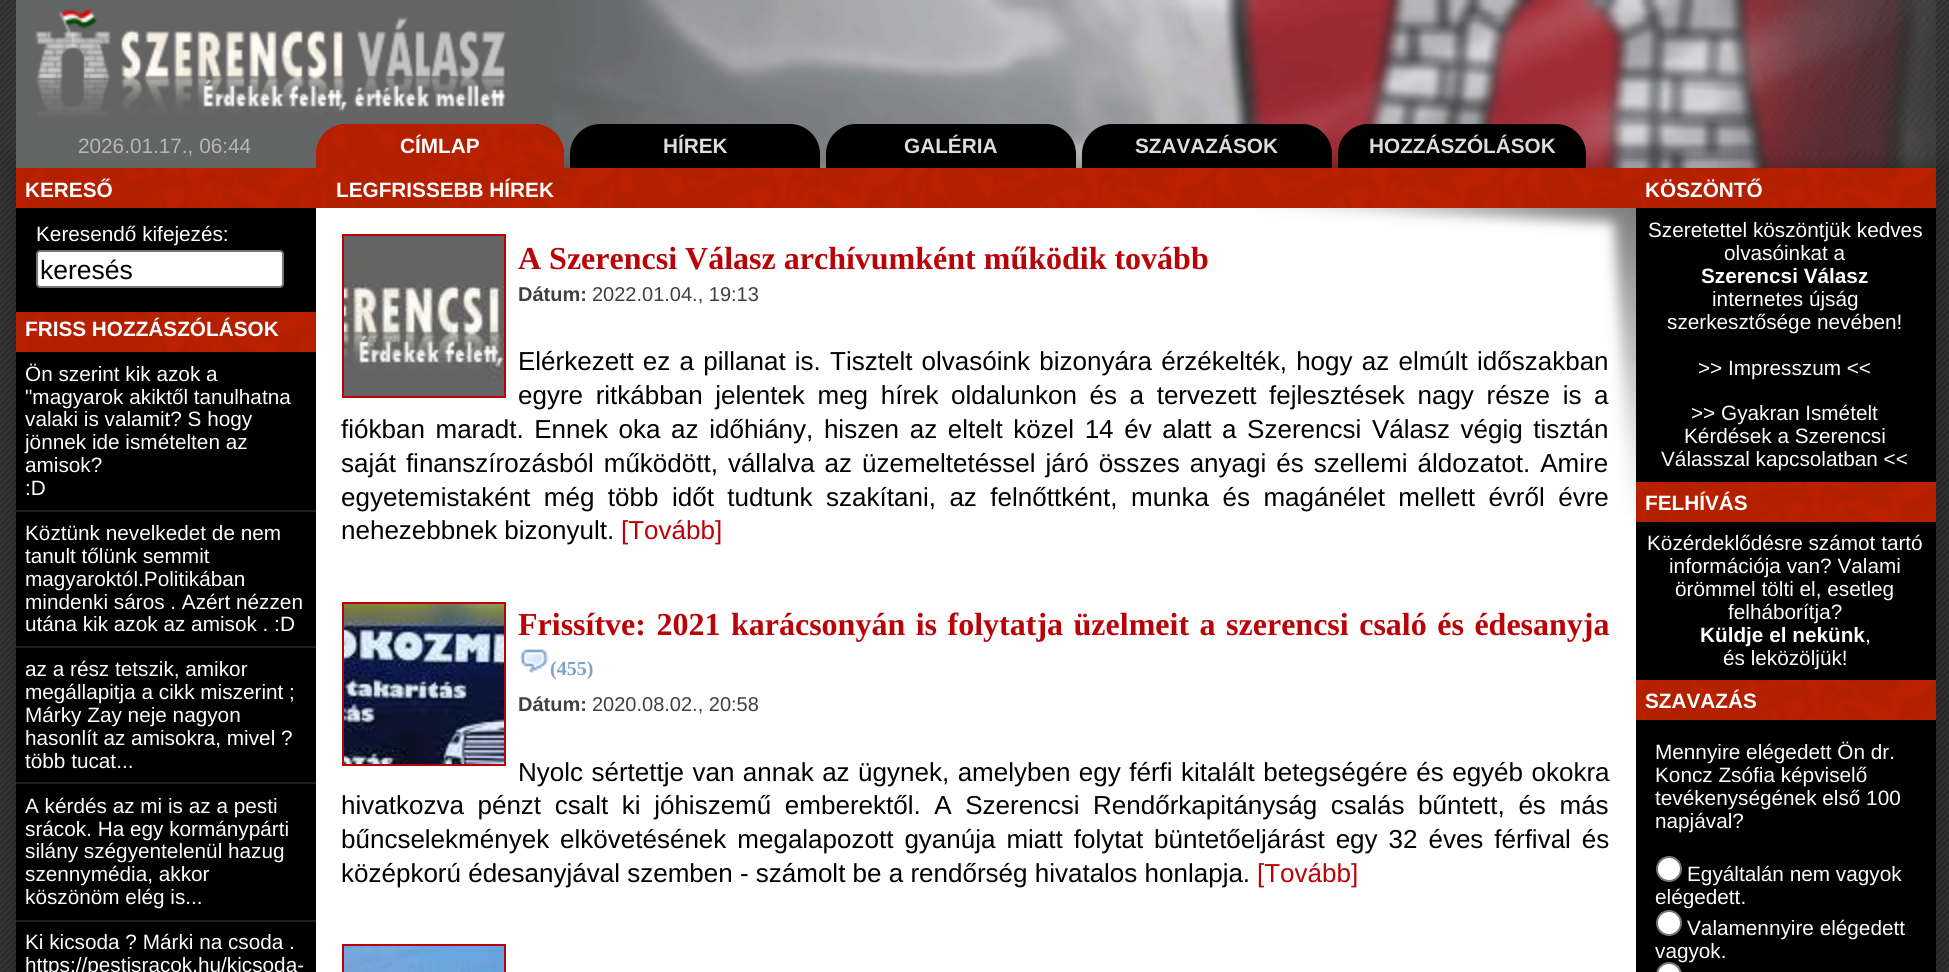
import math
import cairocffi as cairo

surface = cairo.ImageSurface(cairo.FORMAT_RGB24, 1949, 972)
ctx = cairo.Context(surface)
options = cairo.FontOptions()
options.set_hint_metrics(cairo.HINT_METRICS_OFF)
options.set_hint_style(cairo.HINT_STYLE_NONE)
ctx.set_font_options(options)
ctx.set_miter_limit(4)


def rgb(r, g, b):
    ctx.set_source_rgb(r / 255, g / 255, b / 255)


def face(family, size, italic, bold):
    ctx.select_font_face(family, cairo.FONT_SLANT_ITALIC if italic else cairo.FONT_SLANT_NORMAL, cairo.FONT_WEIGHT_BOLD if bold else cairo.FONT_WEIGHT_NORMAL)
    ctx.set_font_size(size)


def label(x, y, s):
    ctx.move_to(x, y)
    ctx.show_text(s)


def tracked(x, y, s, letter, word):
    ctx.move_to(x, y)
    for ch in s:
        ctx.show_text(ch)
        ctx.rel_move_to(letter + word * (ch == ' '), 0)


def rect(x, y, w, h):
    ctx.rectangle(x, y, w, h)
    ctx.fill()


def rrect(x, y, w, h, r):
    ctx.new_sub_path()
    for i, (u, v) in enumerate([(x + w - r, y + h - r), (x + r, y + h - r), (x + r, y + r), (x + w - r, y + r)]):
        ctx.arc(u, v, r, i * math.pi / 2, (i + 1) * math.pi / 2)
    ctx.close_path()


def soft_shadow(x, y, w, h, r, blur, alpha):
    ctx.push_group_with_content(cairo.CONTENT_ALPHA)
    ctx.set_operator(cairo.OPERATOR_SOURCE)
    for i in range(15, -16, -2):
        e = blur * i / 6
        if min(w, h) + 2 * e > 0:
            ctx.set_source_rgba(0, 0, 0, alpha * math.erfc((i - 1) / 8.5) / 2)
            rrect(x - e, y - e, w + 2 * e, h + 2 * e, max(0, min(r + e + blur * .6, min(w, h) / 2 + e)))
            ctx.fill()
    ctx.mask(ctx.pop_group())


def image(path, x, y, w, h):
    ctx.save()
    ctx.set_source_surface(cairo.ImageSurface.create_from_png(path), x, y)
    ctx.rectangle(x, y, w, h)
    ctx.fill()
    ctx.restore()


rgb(255, 255, 255)
ctx.paint()
image('image0.png', 0, 0, 1949, 972)
rgb(100, 102, 102)
rect(16, 0, 536, 154)
image('image1.png', 552, 0, 1384, 168)
image('image2.png', 35, 7, 472, 110)
rgb(0, 0, 0)
soft_shadow(10, 162, 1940, 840, 0, 10, 0.2)
rgb(100, 102, 102)
rect(16, 151, 300, 17)
face('Liberation Sans', 20.75, 0, 0)
rgb(182, 182, 182)
label(78, 153, '2026.01.17., 06:44')
rgb(185, 3, 7)
ctx.new_path()
ctx.move_to(346, 124)
ctx.line_to(534, 124)
ctx.curve_to(550.5, 124, 564, 137.5, 564, 154)
ctx.line_to(564, 168)
ctx.line_to(316, 168)
ctx.line_to(316, 154)
ctx.curve_to(316, 137.5, 329.5, 124, 346, 124)
ctx.close_path()
ctx.fill()
image('image3.png', 316, 124, 248, 44)
face('Liberation Sans', 20.75, 0, 1)
rgb(255, 255, 255)
label(400, 153, 'CÍMLAP')
rgb(0, 0, 0)
ctx.new_path()
ctx.move_to(600, 124)
ctx.line_to(790, 124)
ctx.curve_to(806.5, 124, 820, 137.5, 820, 154)
ctx.line_to(820, 168)
ctx.line_to(570, 168)
ctx.line_to(570, 154)
ctx.curve_to(570, 137.5, 583.5, 124, 600, 124)
ctx.close_path()
ctx.fill()
rgb(221, 221, 221)
label(663, 153, 'HÍREK')
rgb(0, 0, 0)
ctx.new_path()
ctx.move_to(856, 124)
ctx.line_to(1046, 124)
ctx.curve_to(1062.5, 124, 1076, 137.5, 1076, 154)
ctx.line_to(1076, 168)
ctx.line_to(826, 168)
ctx.line_to(826, 154)
ctx.curve_to(826, 137.5, 839.5, 124, 856, 124)
ctx.close_path()
ctx.fill()
rgb(221, 221, 221)
label(904, 153, 'GALÉRIA')
rgb(0, 0, 0)
ctx.new_path()
ctx.move_to(1112, 124)
ctx.line_to(1302, 124)
ctx.curve_to(1318.5, 124, 1332, 137.5, 1332, 154)
ctx.line_to(1332, 168)
ctx.line_to(1082, 168)
ctx.line_to(1082, 154)
ctx.curve_to(1082, 137.5, 1095.5, 124, 1112, 124)
ctx.close_path()
ctx.fill()
rgb(221, 221, 221)
label(1135, 153, 'SZAVAZÁSOK')
rgb(0, 0, 0)
ctx.new_path()
ctx.move_to(1368, 124)
ctx.line_to(1556, 124)
ctx.curve_to(1572.5, 124, 1586, 137.5, 1586, 154)
ctx.line_to(1586, 168)
ctx.line_to(1338, 168)
ctx.line_to(1338, 154)
ctx.curve_to(1338, 137.5, 1351.5, 124, 1368, 124)
ctx.close_path()
ctx.fill()
rgb(221, 221, 221)
label(1369, 153, 'HOZZÁSZÓLÁSOK')
rgb(0, 0, 0)
rect(16, 208, 300, 764)
image('image4.png', 16, 168, 300, 40)
rgb(255, 255, 255)
label(25, 197, 'KERESŐ')
face('Liberation Sans', 20.75, 0, 0)
label(36, 241, 'Keresendő kifejezés:')
rrect(37, 251, 246, 36, 3)
ctx.fill_preserve()
rgb(118, 118, 118)
ctx.stroke()
face('Liberation Sans', 26.5, 0, 0)
rgb(0, 0, 0)
label(40, 279, 'keresés')
image('image4.png', 16, 312, 300, 40)
face('Liberation Sans', 20.75, 0, 1)
rgb(255, 255, 255)
label(25, 336, 'FRISS HOZZÁSZÓLÁSOK')
rgb(32, 32, 32)
rect(16, 510, 300, 2)
face('Liberation Sans', 20.75, 0, 0)
rgb(255, 255, 255)
label(25, 381, 'Ön szerint kik azok a')
label(25, 404, '"magyarok akiktől tanulhatna')
label(25, 426, 'valaki is valamit? S hogy')
label(25, 449, 'jönnek ide ismételten az')
label(25, 472, 'amisok?')
label(25, 495, ':D')
rgb(32, 32, 32)
rect(16, 646, 300, 2)
rgb(255, 255, 255)
label(25, 540, 'Köztünk nevelkedet de nem')
label(25, 563, 'tanult tőlünk semmit')
label(25, 586, 'magyaroktól.Politikában')
label(25, 609, 'mindenki sáros . Azért nézzen')
label(25, 631, 'utána kik azok az amisok . :D')
rgb(32, 32, 32)
rect(16, 782, 300, 2)
rgb(255, 255, 255)
label(25, 676, 'az a rész tetszik, amikor')
label(25, 699, 'megállapitja a cikk miszerint ;')
label(25, 722, 'Márky Zay neje nagyon')
label(25, 745, 'hasonlít az amisokra, mivel ?')
label(25, 768, 'több tucat...')
rgb(32, 32, 32)
rect(16, 920, 300, 2)
rgb(255, 255, 255)
label(25, 813, 'A kérdés az mi is az a pesti')
label(25, 836, 'srácok. Ha egy kormánypárti')
label(25, 858, 'silány szégyentelenül hazug')
label(25, 881, 'szennymédia, akkor')
label(25, 904, 'köszönöm elég is...')
label(25, 949, 'Ki kicsoda ? Márki na csoda .')
label(25, 972, 'https://pestisracok.hu/kicsoda-')
rect(316, 208, 1320, 764)
image('image5.png', 1257, 208, 379, 307)
image('image6.png', 316, 168, 1320, 40)
face('Liberation Sans', 20.75, 0, 1)
label(336, 197, 'LEGFRISSEBB HÍREK')
ctx.rectangle(343, 235, 162, 162)
rgb(185, 3, 7)
ctx.stroke()
image('image7.png', 344, 236, 160, 160)
face('Liberation Serif', 32, 0, 1)
label(518, 269, 'A Szerencsi Válasz archívumként működik tovább')
face('Liberation Sans', 20, 0, 1)
rgb(64, 64, 64)
label(518, 301, 'Dátum:')
face('Liberation Sans', 20, 0, 0)
label(592, 301, '2022.01.04., 19:13')
face('Liberation Sans', 26, 0, 0)
rgb(0, 0, 0)
tracked(518, 370, 'Elérkezett ez a pillanat is. Tisztelt olvasóink bizonyára érzékelték, hogy az elmúlt időszakban', 0, 2)
tracked(518, 404, 'egyre ritkábban jelentek meg hírek oldalunkon és a tervezett fejlesztések nagy része is a', 0, 5.4)
tracked(341, 438, 'fiókban maradt. Ennek oka az időhiány, hiszen az eltelt közel 14 év alatt a Szerencsi Válasz végig tisztán', 0, 3.4)
tracked(341, 472, 'saját finanszírozásból működött, vállalva az üzemeltetéssel járó összes anyagi és szellemi áldozatot. Amire', 0, 2.75)
tracked(341, 506, 'egyetemistaként még több időt tudtunk szakítani, az felnőttként, munka és magánélet mellett évről évre', 0, 6.25)
label(341, 539, 'nehezebbnek bizonyult.')
rgb(185, 3, 7)
label(621, 539, '[Tovább]')
ctx.rectangle(343, 603, 162, 162)
ctx.stroke()
image('image8.png', 344, 604, 160, 160)
face('Liberation Serif', 32, 0, 1)
tracked(518, 635, 'Frissítve: 2021 karácsonyán is folytatja üzelmeit a szerencsi csaló és édesanyja', 0, 2.5)
image('image9.png', 519, 649, 30, 24)
face('Liberation Serif', 20, 0, 1)
rgb(125, 162, 200)
label(550, 675, '(455)')
face('Liberation Sans', 20, 0, 1)
rgb(64, 64, 64)
label(518, 711, 'Dátum:')
face('Liberation Sans', 20, 0, 0)
label(592, 711, '2020.08.02., 20:58')
face('Liberation Sans', 26, 0, 0)
rgb(0, 0, 0)
tracked(518, 781, 'Nyolc sértettje van annak az ügynek, amelyben egy férfi kitalált betegségére és egyéb okokra', 0, 1.25)
tracked(341, 814, 'hivatkozva pénzt csalt ki jóhiszemű emberektől. A Szerencsi Rendőrkapitányság csalás bűntett, és más', 0, 6.4)
tracked(341, 848, 'bűncselekmények elkövetésének megalapozott gyanúja miatt folytat büntetőeljárást egy 32 éves férfival és', 0, 3.75)
label(341, 882, 'középkorú édesanyjával szemben - számolt be a rendőrség hivatalos honlapja.')
rgb(185, 3, 7)
label(1257, 882, '[Tovább]')
ctx.rectangle(343, 945, 162, 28)
ctx.stroke()
image('image10.png', 344, 946, 160, 26)
rgb(0, 0, 0)
rect(1636, 208, 300, 274)
image('image4.png', 1636, 168, 300, 40)
face('Liberation Sans', 20.75, 0, 1)
rgb(255, 255, 255)
label(1645, 197, 'KÖSZÖNTŐ')
face('Liberation Sans', 20.75, 0, 0)
label(1648, 237, 'Szeretettel köszöntjük kedves')
label(1724, 260, 'olvasóinkat a')
face('Liberation Sans', 20.75, 0, 1)
label(1701, 283, 'Szerencsi Válasz')
face('Liberation Sans', 20.75, 0, 0)
label(1712, 306, 'internetes újság')
label(1667, 329, 'szerkesztősége nevében!')
label(1698, 375, '>> Impresszum <<')
label(1691, 420, '>> Gyakran Ismételt')
label(1684, 443, 'Kérdések a Szerencsi')
label(1661, 466, 'Válasszal kapcsolatban <<')
rgb(0, 0, 0)
rect(1636, 522, 300, 158)
image('image4.png', 1636, 482, 300, 40)
face('Liberation Sans', 20.75, 0, 1)
rgb(255, 255, 255)
label(1645, 510, 'FELHÍVÁS')
face('Liberation Sans', 20.75, 0, 0)
label(1647, 550, 'Közérdeklődésre számot tartó')
label(1669, 573, 'információja van? Valami')
label(1675, 596, 'örömmel tölti el, esetleg')
label(1728, 619, 'felháborítja?')
face('Liberation Sans', 20.75, 0, 1)
label(1700, 642, 'Küldje el nekünk')
face('Liberation Sans', 20.75, 0, 0)
label(1865, 642, ',')
label(1723, 665, 'és leközöljük!')
rgb(0, 0, 0)
rect(1636, 720, 300, 252)
image('image4.png', 1636, 680, 300, 40)
face('Liberation Sans', 20.75, 0, 1)
rgb(255, 255, 255)
label(1645, 708, 'SZAVAZÁS')
face('Liberation Sans', 20.75, 0, 0)
label(1655, 759, 'Mennyire elégedett Ön dr.')
label(1655, 782, 'Koncz Zsófia képviselő')
label(1655, 805, 'tevékenységének első 100')
label(1655, 828, 'napjával?')
ctx.new_path()
ctx.arc(1669, 869, 12, 0, 2 * math.pi)
ctx.fill_preserve()
rgb(118, 118, 118)
ctx.stroke()
rgb(255, 255, 255)
label(1687, 881, 'Egyáltalán nem vagyok')
label(1655, 904, 'elégedett.')
ctx.new_path()
ctx.arc(1669, 923, 12, 0, 2 * math.pi)
ctx.fill_preserve()
rgb(118, 118, 118)
ctx.stroke()
rgb(255, 255, 255)
label(1687, 935, 'Valamennyire elégedett')
label(1655, 958, 'vagyok.')
rrect(1657, 963, 24, 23, 12)
ctx.fill_preserve()
rgb(118, 118, 118)
ctx.stroke()
surface.write_to_png('render.png')
